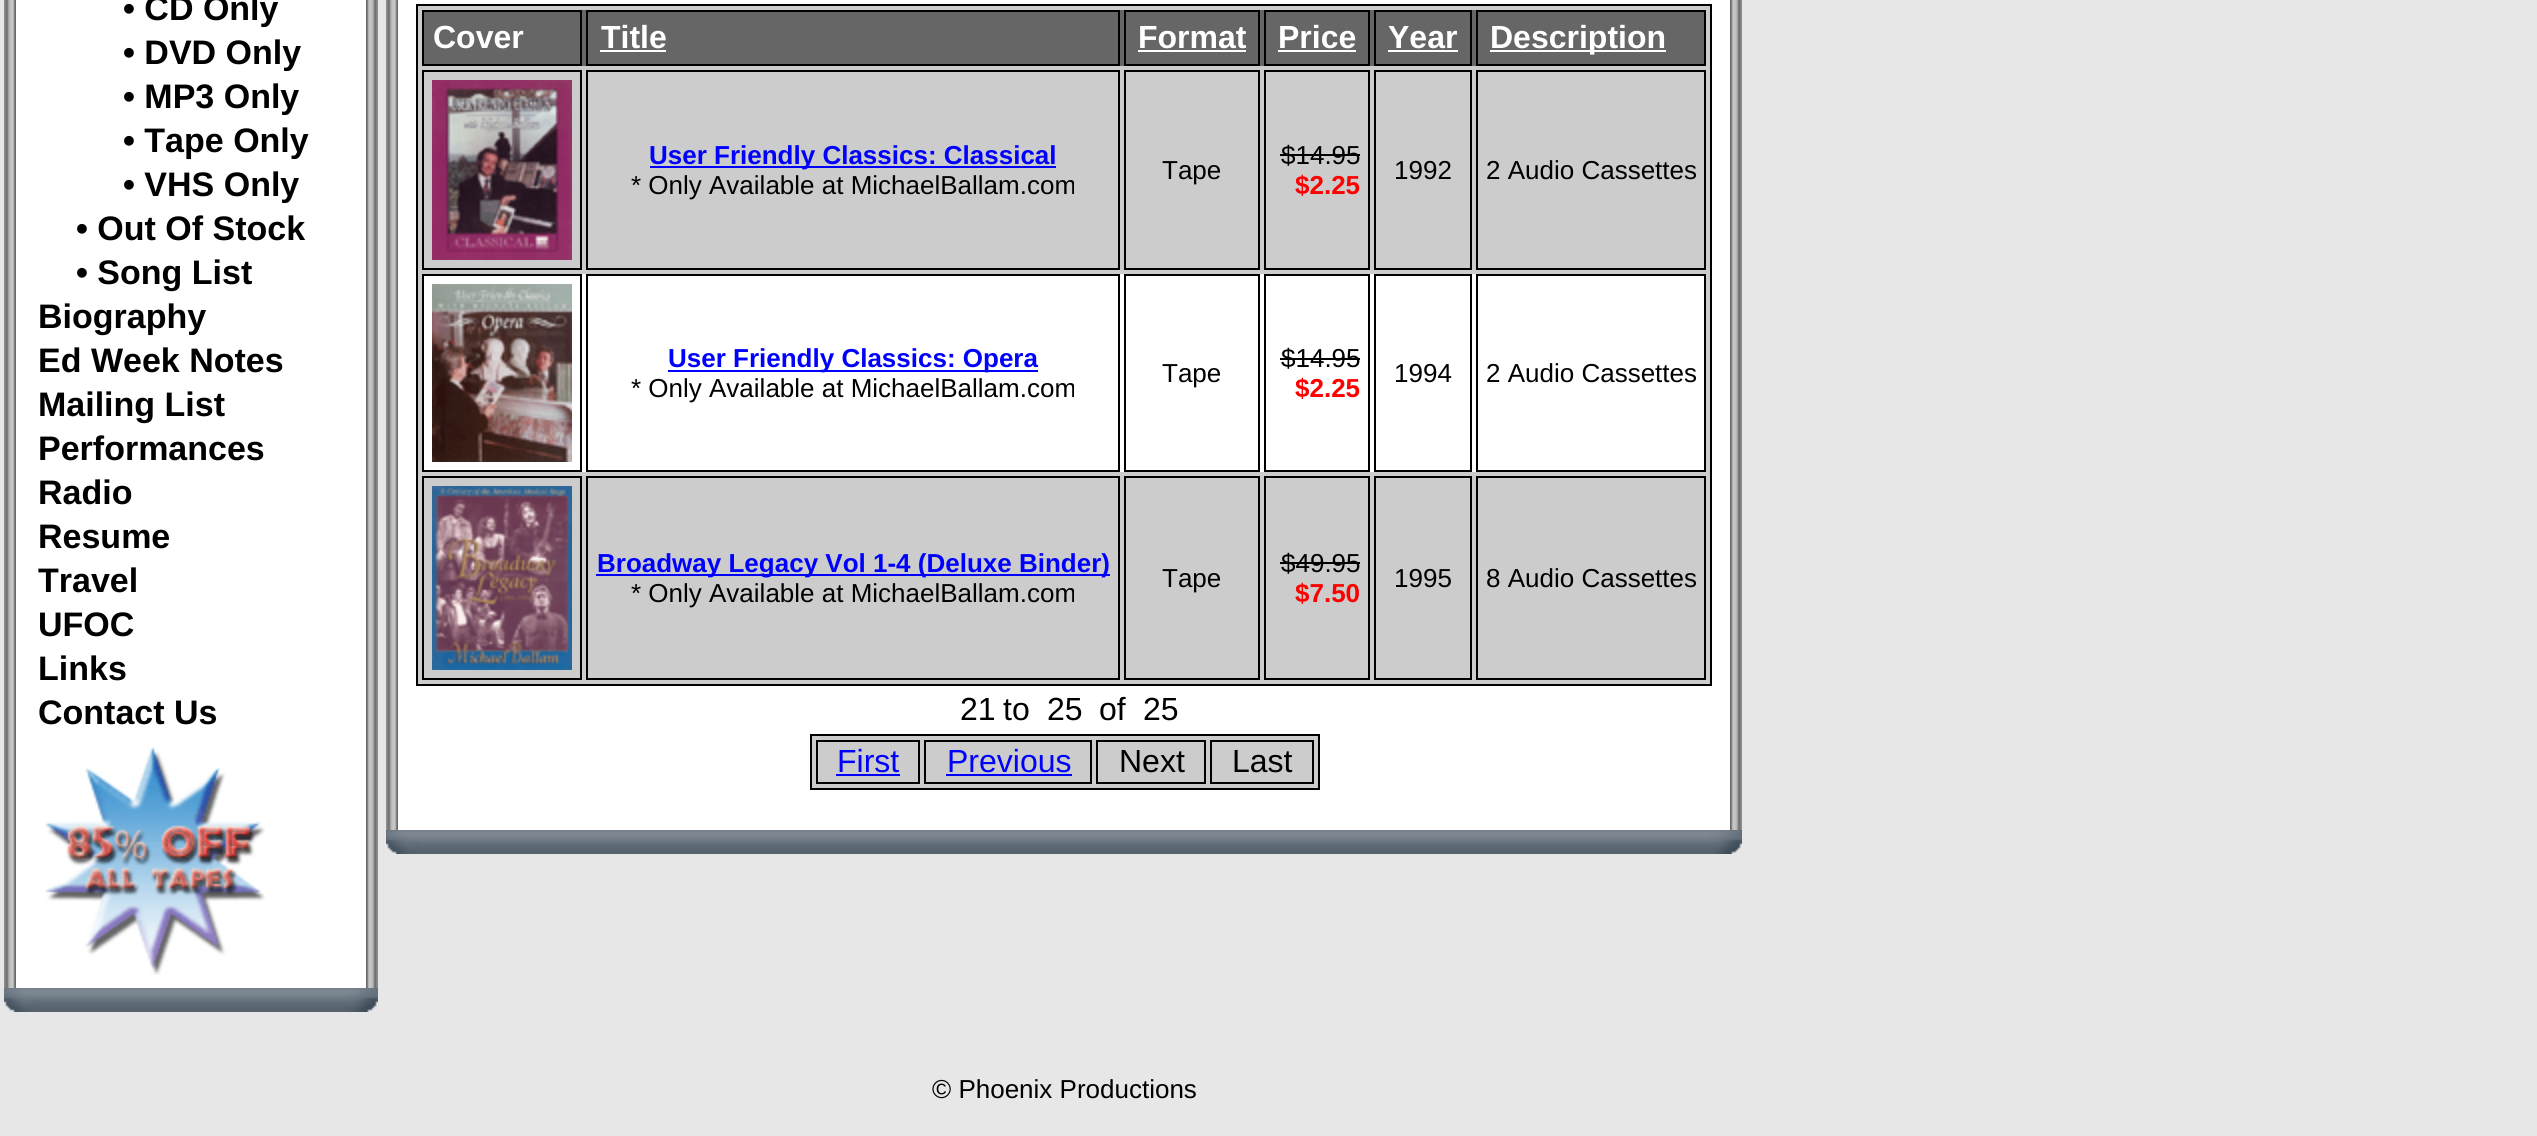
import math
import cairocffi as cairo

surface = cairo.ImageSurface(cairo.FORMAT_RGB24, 2537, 1136)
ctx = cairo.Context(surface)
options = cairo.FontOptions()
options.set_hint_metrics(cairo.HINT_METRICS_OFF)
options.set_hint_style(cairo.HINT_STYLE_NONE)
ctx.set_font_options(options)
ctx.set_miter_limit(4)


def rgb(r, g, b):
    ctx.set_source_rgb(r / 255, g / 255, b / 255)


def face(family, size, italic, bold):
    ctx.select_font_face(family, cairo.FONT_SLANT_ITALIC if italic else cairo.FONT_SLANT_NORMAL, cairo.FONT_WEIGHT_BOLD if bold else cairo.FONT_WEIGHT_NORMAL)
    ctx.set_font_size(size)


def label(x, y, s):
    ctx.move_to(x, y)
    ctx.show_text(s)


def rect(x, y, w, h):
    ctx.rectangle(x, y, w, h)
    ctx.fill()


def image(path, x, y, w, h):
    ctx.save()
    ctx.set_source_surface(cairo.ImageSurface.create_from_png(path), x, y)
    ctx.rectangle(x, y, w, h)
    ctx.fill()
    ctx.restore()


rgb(231, 231, 231)
ctx.paint()
image('image0.png', 4, 0, 12, 988)
rgb(255, 255, 255)
rect(16, 0, 350, 988)
face('Liberation Sans', 34, 0, 1)
rgb(0, 0, 0)
label(123, 20, '• CD Only')
label(123, 64, '• DVD Only')
label(123, 108, '• MP3 Only')
label(123, 152, '• Tape Only')
label(123, 196, '• VHS Only')
label(76, 240, '• Out Of Stock')
label(76, 284, '• Song List')
label(38, 328, 'Biography')
label(38, 372, 'Ed Week Notes')
label(38, 416, 'Mailing List')
label(38, 460, 'Performances')
label(38, 504, 'Radio')
label(38, 548, 'Resume')
label(38, 592, 'Travel')
label(38, 636, 'UFOC')
label(38, 680, 'Links')
label(38, 724, 'Contact Us')
image('image1.png', 45, 747, 220, 228)
image('image2.png', 366, 0, 12, 988)
image('image3.png', 4, 988, 34, 24)
image('image4.png', 38, 988, 306, 24)
image('image5.png', 344, 988, 34, 24)
image('image6.png', 386, 0, 12, 830)
rgb(255, 255, 255)
rect(398, 0, 1332, 830)
rgb(204, 204, 204)
ctx.rectangle(417, 5, 1294, 680)
ctx.fill_preserve()
rgb(0, 0, 0)
ctx.stroke()
rgb(102, 102, 102)
rect(424, 10, 1280, 56)
ctx.rectangle(423, 11, 158, 54)
rgb(0, 0, 0)
ctx.stroke()
face('Liberation Sans', 32, 0, 1)
rgb(255, 255, 255)
label(433, 48, 'Cover')
ctx.rectangle(587, 11, 532, 54)
rgb(0, 0, 0)
ctx.stroke()
rgb(255, 255, 255)
label(601, 48, 'Title')
rect(600, 50, 66, 2)
ctx.rectangle(1125, 11, 134, 54)
rgb(0, 0, 0)
ctx.stroke()
rgb(255, 255, 255)
label(1138, 48, 'Format')
rect(1138, 50, 108, 2)
ctx.rectangle(1265, 11, 104, 54)
rgb(0, 0, 0)
ctx.stroke()
rgb(255, 255, 255)
label(1278, 48, 'Price')
rect(1278, 50, 78, 2)
ctx.rectangle(1375, 11, 96, 54)
rgb(0, 0, 0)
ctx.stroke()
rgb(255, 255, 255)
label(1388, 48, 'Year')
rect(1388, 50, 70, 2)
ctx.rectangle(1477, 11, 228, 54)
rgb(0, 0, 0)
ctx.stroke()
rgb(255, 255, 255)
rect(1490, 50, 176, 2)
label(1490, 48, 'Description')
ctx.rectangle(423, 71, 158, 198)
rgb(0, 0, 0)
ctx.stroke()
image('image7.png', 432, 80, 140, 180)
ctx.rectangle(587, 71, 532, 198)
ctx.stroke()
rgb(0, 0, 255)
rect(650, 166, 406, 2)
face('Liberation Sans', 26, 0, 1)
label(649, 164, 'User Friendly Classics: Classical')
face('Liberation Sans', 26, 0, 0)
rgb(0, 0, 0)
label(631, 194, '* Only Available at MichaelBallam.com')
ctx.rectangle(1125, 71, 134, 198)
ctx.stroke()
label(1162, 179, 'Tape')
ctx.rectangle(1265, 71, 104, 198)
ctx.stroke()
label(1281, 164, '$14.95')
rect(1280, 154, 80, 2)
face('Liberation Sans', 26, 0, 1)
rgb(255, 0, 0)
label(1295, 194, '$2.25')
ctx.rectangle(1375, 71, 96, 198)
rgb(0, 0, 0)
ctx.stroke()
face('Liberation Sans', 26, 0, 0)
label(1394, 179, '1992')
ctx.rectangle(1477, 71, 228, 198)
ctx.stroke()
label(1486, 179, '2 Audio Cassettes')
rgb(255, 255, 255)
rect(424, 274, 1280, 198)
ctx.rectangle(423, 275, 158, 196)
rgb(0, 0, 0)
ctx.stroke()
image('image8.png', 432, 284, 140, 178)
ctx.rectangle(587, 275, 532, 196)
ctx.stroke()
rgb(0, 0, 255)
rect(668, 370, 370, 2)
face('Liberation Sans', 26, 0, 1)
label(668, 367, 'User Friendly Classics: Opera')
face('Liberation Sans', 26, 0, 0)
rgb(0, 0, 0)
label(631, 397, '* Only Available at MichaelBallam.com')
ctx.rectangle(1125, 275, 134, 196)
ctx.stroke()
label(1162, 382, 'Tape')
ctx.rectangle(1265, 275, 104, 196)
ctx.stroke()
label(1281, 367, '$14.95')
rect(1280, 358, 80, 2)
face('Liberation Sans', 26, 0, 1)
rgb(255, 0, 0)
label(1295, 397, '$2.25')
ctx.rectangle(1375, 275, 96, 196)
rgb(0, 0, 0)
ctx.stroke()
face('Liberation Sans', 26, 0, 0)
label(1394, 382, '1994')
ctx.rectangle(1477, 275, 228, 196)
ctx.stroke()
label(1486, 382, '2 Audio Cassettes')
ctx.rectangle(423, 477, 158, 202)
ctx.stroke()
image('image9.png', 432, 486, 140, 184)
ctx.rectangle(587, 477, 532, 202)
ctx.stroke()
rgb(0, 0, 255)
rect(596, 574, 514, 2)
face('Liberation Sans', 26, 0, 1)
label(597, 572, 'Broadway Legacy Vol 1-4 (Deluxe Binder)')
face('Liberation Sans', 26, 0, 0)
rgb(0, 0, 0)
label(631, 602, '* Only Available at MichaelBallam.com')
ctx.rectangle(1125, 477, 134, 202)
ctx.stroke()
label(1162, 587, 'Tape')
ctx.rectangle(1265, 477, 104, 202)
ctx.stroke()
label(1281, 572, '$49.95')
rect(1280, 562, 80, 2)
face('Liberation Sans', 26, 0, 1)
rgb(255, 0, 0)
label(1295, 602, '$7.50')
ctx.rectangle(1375, 477, 96, 202)
rgb(0, 0, 0)
ctx.stroke()
face('Liberation Sans', 26, 0, 0)
label(1394, 587, '1995')
ctx.rectangle(1477, 477, 228, 202)
ctx.stroke()
label(1486, 587, '8 Audio Cassettes')
face('Liberation Sans', 32, 0, 0)
label(960, 720, '21')
label(1003, 720, 'to')
label(1047, 720, '25')
label(1099, 720, 'of')
label(1143, 720, '25')
rgb(204, 204, 204)
ctx.rectangle(811, 735, 508, 54)
ctx.fill_preserve()
rgb(0, 0, 0)
ctx.stroke()
ctx.rectangle(817, 741, 102, 42)
ctx.stroke()
rgb(0, 0, 255)
label(837, 772, 'First')
rect(836, 774, 64, 2)
ctx.rectangle(925, 741, 166, 42)
rgb(0, 0, 0)
ctx.stroke()
rgb(0, 0, 255)
label(947, 772, 'Previous')
rect(946, 774, 126, 2)
ctx.rectangle(1097, 741, 108, 42)
rgb(0, 0, 0)
ctx.stroke()
label(1119, 772, 'Next')
ctx.rectangle(1211, 741, 102, 42)
ctx.stroke()
label(1232, 772, 'Last')
image('image10.png', 1730, 0, 12, 830)
image('image3.png', 386, 830, 34, 24)
image('image11.png', 420, 830, 1288, 24)
image('image5.png', 1708, 830, 34, 24)
face('Liberation Sans', 26, 0, 0)
label(932, 1098, '© Phoenix Productions')
surface.write_to_png('render.png')
